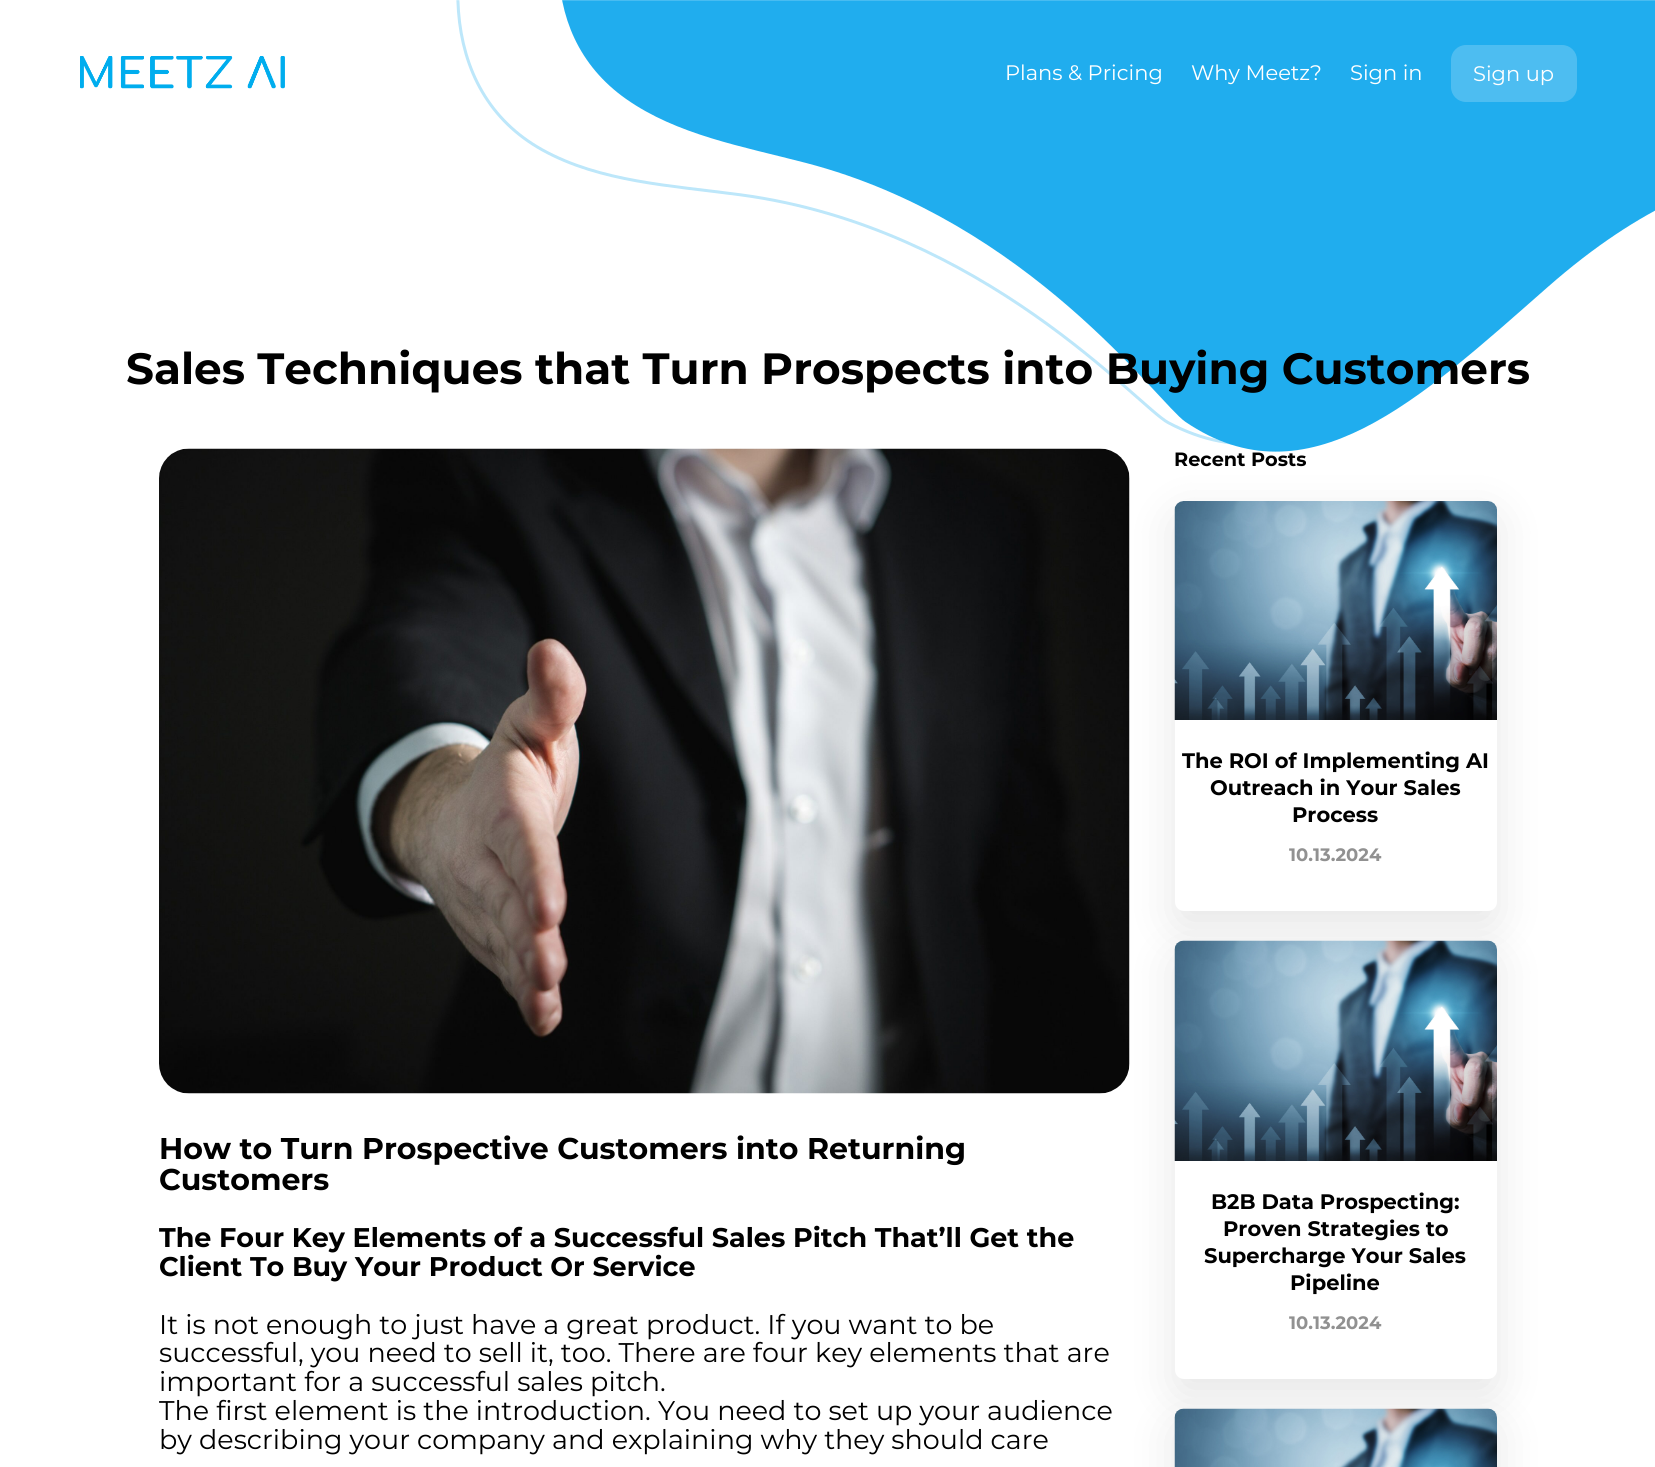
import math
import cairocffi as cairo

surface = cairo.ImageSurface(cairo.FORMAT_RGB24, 1655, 1467)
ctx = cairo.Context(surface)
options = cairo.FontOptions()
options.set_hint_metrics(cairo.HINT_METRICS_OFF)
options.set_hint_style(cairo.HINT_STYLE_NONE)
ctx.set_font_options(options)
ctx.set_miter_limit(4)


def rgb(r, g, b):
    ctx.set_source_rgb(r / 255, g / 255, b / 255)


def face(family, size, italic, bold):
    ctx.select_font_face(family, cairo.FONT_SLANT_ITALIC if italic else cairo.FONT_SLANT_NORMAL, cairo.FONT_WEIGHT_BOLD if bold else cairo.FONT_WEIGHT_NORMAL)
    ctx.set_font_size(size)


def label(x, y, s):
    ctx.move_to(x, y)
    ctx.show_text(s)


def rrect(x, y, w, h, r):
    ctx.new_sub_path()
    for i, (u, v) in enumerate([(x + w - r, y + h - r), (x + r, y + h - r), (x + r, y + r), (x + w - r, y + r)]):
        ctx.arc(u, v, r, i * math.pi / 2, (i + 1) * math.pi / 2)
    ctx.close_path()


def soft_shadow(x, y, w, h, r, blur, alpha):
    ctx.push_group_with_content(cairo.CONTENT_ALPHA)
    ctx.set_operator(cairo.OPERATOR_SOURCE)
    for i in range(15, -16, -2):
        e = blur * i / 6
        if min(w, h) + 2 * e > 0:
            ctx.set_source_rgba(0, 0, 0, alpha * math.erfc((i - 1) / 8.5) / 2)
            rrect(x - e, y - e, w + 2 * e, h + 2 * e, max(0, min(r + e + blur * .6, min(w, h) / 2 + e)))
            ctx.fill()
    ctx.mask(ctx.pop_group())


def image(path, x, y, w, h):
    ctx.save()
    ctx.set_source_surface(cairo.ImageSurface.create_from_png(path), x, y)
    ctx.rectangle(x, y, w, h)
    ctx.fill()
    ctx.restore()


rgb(255, 255, 255)
ctx.paint()
image('image0.png', 80, 56, 205, 33)
image('image2.png', 159, 448, 971, 646)
rgb(0, 0, 0)
soft_shadow(1175, 516, 322, 410, 9, 22.5, 0.1)
image('image1.png', 456, 0, 1199, 452)
face('Montserrat', 21, 0, 0)
rgb(255, 255, 255)
label(1005, 80, 'Plans & Pricing')
label(1191, 80, 'Why Meetz?')
label(1350, 80, 'Sign in')
rgb(77, 189, 241)
rrect(1451, 45, 126, 57, 15)
ctx.fill()
rgb(255, 255, 255)
label(1473, 81, 'Sign up')
face('Montserrat', 43.75, 0, 1)
rgb(0, 0, 0)
label(126, 384, 'Sales Techniques that Turn Prospects into Buying Customers')
face('Montserrat', 30, 0, 1)
label(159, 1159, 'How to Turn Prospective Customers into Returning')
label(159, 1190, 'Customers')
face('Montserrat', 27, 0, 1)
label(159, 1247, 'The Four Key Elements of a Successful Sales Pitch That’ll Get the')
label(159, 1276, 'Client To Buy Your Product Or Service')
face('Montserrat', 27, 0, 0)
label(159, 1334, 'It is not enough to just have a great product. If you want to be')
label(159, 1362, 'successful, you need to sell it, too. There are four key elements that are')
label(159, 1391, 'important for a successful sales pitch.')
label(159, 1420, 'The first element is the introduction. You need to set up your audience')
label(159, 1449, 'by describing your company and explaining why they should care')
face('Montserrat', 19.25, 0, 1)
label(1174, 466, 'Recent Posts')
rgb(255, 255, 255)
rrect(1175, 501, 322, 410, 9)
ctx.fill()
image('image3.png', 1174, 501, 323, 219)
face('Montserrat', 21, 0, 1)
rgb(0, 0, 0)
label(1182, 768, 'The ROI of Implementing AI')
label(1210, 795, 'Outreach in Your Sales')
label(1292, 822, 'Process')
face('Montserrat', 18, 0, 1)
rgb(145, 145, 145)
label(1289, 861, '10.13.2024')
rgb(0, 0, 0)
soft_shadow(1175, 956, 322, 438, 9, 22.5, 0.1)
rgb(255, 255, 255)
rrect(1175, 941, 322, 438, 9)
ctx.fill()
image('image4.png', 1174, 940, 323, 221)
face('Montserrat', 21, 0, 1)
rgb(0, 0, 0)
label(1211, 1209, 'B2B Data Prospecting:')
label(1223, 1236, 'Proven Strategies to')
label(1204, 1263, 'Supercharge Your Sales')
label(1290, 1290, 'Pipeline')
face('Montserrat', 18, 0, 1)
rgb(145, 145, 145)
label(1289, 1329, '10.13.2024')
rgb(0, 0, 0)
soft_shadow(1175, 1424, 322, 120, 9, 22.5, 0.1)
image('image5.png', 1174, 1408, 323, 59)
surface.write_to_png('render.png')
